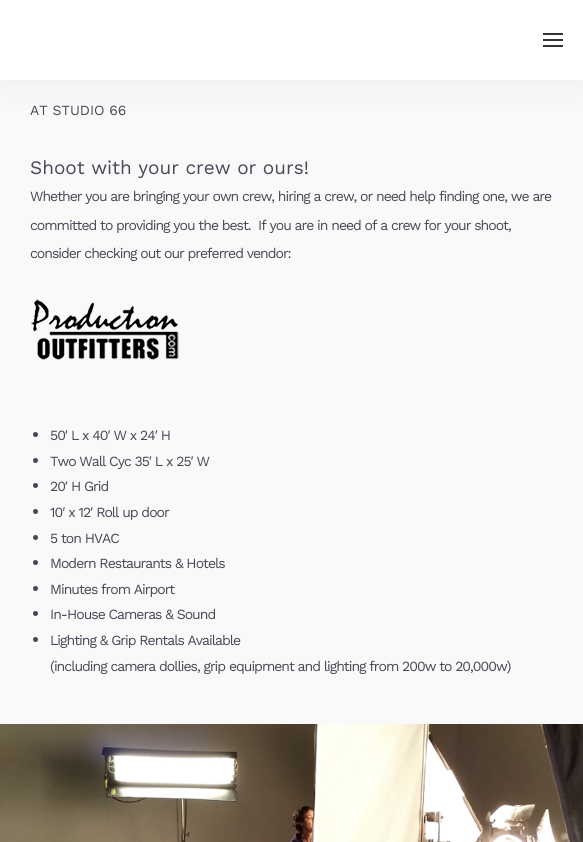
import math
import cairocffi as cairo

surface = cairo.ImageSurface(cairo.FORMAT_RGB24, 583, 842)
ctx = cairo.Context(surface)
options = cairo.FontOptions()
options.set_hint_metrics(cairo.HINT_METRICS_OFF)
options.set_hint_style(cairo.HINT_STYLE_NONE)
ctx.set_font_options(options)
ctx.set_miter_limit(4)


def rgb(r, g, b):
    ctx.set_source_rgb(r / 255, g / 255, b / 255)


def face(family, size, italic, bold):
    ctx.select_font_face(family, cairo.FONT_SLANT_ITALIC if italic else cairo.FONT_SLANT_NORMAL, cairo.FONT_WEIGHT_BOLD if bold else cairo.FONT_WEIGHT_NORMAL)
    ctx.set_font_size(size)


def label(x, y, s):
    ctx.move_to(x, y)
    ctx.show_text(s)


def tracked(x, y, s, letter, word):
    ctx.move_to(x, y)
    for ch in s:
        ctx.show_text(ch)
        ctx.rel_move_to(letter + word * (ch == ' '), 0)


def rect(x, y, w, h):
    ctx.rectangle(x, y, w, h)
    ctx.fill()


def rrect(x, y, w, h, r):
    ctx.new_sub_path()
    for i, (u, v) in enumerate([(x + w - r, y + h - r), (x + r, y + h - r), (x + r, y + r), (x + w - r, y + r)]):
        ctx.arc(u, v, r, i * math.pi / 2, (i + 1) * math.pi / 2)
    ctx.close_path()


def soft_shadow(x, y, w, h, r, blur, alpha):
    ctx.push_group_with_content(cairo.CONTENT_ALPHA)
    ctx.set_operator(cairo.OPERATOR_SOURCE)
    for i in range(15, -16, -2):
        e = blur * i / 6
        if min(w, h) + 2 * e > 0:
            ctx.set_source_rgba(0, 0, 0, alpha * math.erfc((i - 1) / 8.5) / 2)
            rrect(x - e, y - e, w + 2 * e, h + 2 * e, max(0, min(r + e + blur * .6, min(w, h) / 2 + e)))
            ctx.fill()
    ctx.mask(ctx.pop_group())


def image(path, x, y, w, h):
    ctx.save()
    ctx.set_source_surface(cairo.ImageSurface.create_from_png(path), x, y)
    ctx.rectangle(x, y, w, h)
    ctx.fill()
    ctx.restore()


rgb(249, 249, 249)
ctx.paint()
rgb(0, 0, 0)
soft_shadow(0, 0, 583, 80, 0, 20, 0.05)
rgb(255, 255, 255)
rect(0, 0, 583, 80)
rgb(51, 51, 51)
rect(543, 33, 20, 2)
rect(543, 39, 20, 2)
rect(543, 45, 20, 2)
face('Work Sans', 14, 0, 0)
rgb(70, 72, 86)
label(30, 115, 'AT STUDIO 66')
face('Work Sans', 19, 0, 0)
label(30, 174, 'Shoot with your crew or ours!')
face('Work Sans', 14, 0, 0)
tracked(30, 201, 'Whether you are bringing your own crew, hiring a crew, or need help finding one, we are', -1, 0)
tracked(30, 230, 'committed to providing you the best.  If you are in need of a crew for your shoot,', -1, 0)
tracked(30, 258, 'consider checking out our preferred vendor:', -1, 0)
image('image0.png', 31, 299, 148, 61)
ctx.arc(35.5, 434.5, 2.5, 0, 2 * math.pi)
ctx.fill()
tracked(50, 440, '50′ L x 40′ W x 24′ H', -1, 0)
ctx.new_path()
ctx.arc(35.5, 460.5, 2.5, 0, 2 * math.pi)
ctx.fill()
tracked(50, 466, 'Two Wall Cyc 35′ L x 25′ W', -1, 0)
ctx.new_path()
ctx.arc(35.5, 485.5, 2.5, 0, 2 * math.pi)
ctx.fill()
tracked(50, 491, '20′ H Grid', -1, 0)
ctx.new_path()
ctx.arc(35.5, 511.5, 2.5, 0, 2 * math.pi)
ctx.fill()
tracked(50, 517, '10′ x 12′ Roll up door', -1, 0)
ctx.new_path()
ctx.arc(35.5, 537.5, 2.5, 0, 2 * math.pi)
ctx.fill()
tracked(50, 543, '5 ton HVAC', -1, 0)
ctx.new_path()
ctx.arc(35.5, 562.5, 2.5, 0, 2 * math.pi)
ctx.fill()
tracked(50, 568, 'Modern Restaurants & Hotels', -1, 0)
ctx.new_path()
ctx.arc(35.5, 588.5, 2.5, 0, 2 * math.pi)
ctx.fill()
tracked(50, 594, 'Minutes from Airport', -1, 0)
ctx.new_path()
ctx.arc(35.5, 613.5, 2.5, 0, 2 * math.pi)
ctx.fill()
tracked(50, 619, 'In-House Cameras & Sound', -1, 0)
ctx.new_path()
ctx.arc(35.5, 639.5, 2.5, 0, 2 * math.pi)
ctx.fill()
tracked(50, 645, 'Lighting & Grip Rentals Available', -1, 0)
tracked(50, 671, '(including camera dollies, grip equipment and lighting from 200w to 20,000w)', -1, 0)
image('image1.png', 0, 724, 583, 118)
surface.write_to_png('render.png')
